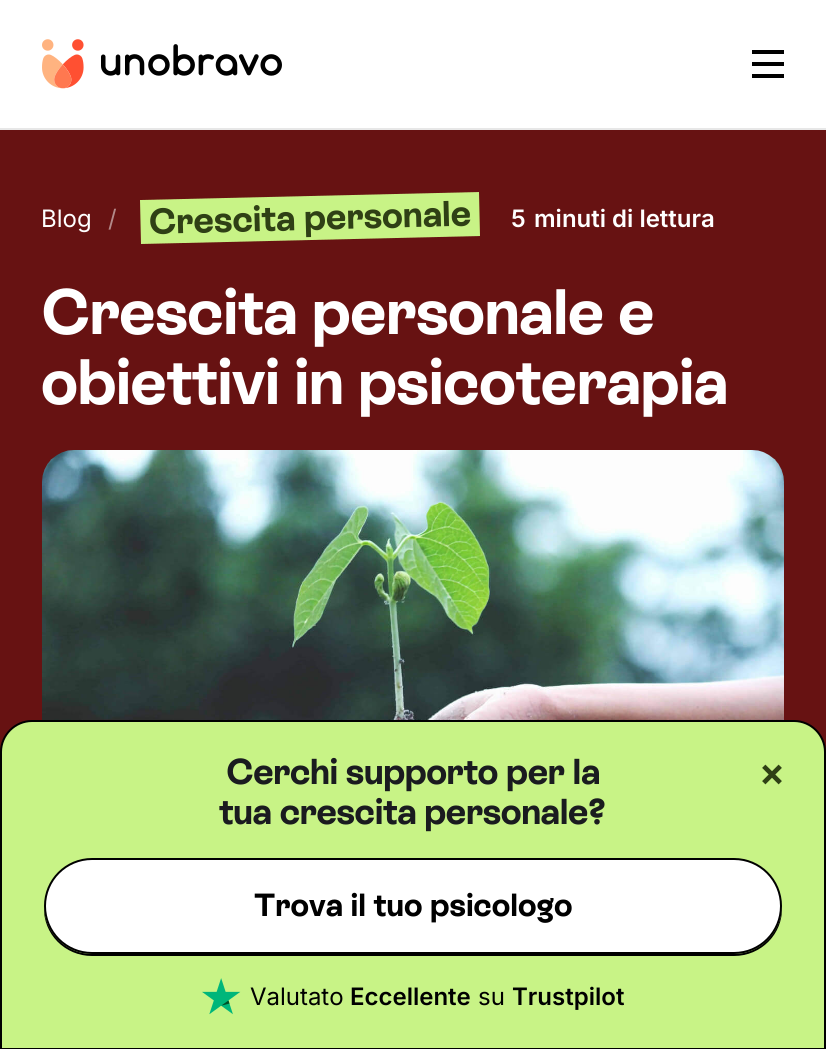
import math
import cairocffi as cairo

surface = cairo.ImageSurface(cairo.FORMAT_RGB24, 826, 1049)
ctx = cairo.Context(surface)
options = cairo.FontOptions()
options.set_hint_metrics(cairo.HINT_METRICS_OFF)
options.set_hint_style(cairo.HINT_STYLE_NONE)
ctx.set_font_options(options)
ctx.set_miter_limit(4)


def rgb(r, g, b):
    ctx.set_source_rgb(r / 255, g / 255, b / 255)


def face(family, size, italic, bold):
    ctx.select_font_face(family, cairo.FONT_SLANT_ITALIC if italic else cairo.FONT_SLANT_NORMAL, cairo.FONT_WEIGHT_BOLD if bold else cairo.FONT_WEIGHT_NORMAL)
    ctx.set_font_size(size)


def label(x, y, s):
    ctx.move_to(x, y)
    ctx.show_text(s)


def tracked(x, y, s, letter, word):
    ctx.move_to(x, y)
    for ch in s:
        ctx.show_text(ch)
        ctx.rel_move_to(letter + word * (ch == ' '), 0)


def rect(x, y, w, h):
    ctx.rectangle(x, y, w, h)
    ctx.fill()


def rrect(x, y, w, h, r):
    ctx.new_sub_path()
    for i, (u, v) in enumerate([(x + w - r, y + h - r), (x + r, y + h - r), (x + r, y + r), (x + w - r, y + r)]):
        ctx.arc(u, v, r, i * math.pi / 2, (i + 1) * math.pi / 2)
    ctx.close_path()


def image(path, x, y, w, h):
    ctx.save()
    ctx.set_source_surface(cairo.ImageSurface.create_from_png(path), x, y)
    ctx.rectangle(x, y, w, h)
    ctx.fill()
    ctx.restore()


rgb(103, 18, 18)
ctx.paint()
rgb(255, 255, 255)
rect(0, 0, 826, 128)
image('image0.png', 42, 39, 240, 50)
rgb(0, 0, 0)
rect(752, 50, 32, 4)
rect(752, 62, 32, 4)
rect(752, 74, 32, 4)
rgb(231, 231, 231)
rect(0, 128, 826, 2)
face('Inter', 24, 0, 0)
rgb(255, 255, 255)
label(41, 227, 'Blog')
rgb(179, 137, 137)
label(108, 227, '/')
rgb(200, 243, 134)
ctx.new_path()
ctx.move_to(140, 200)
ctx.line_to(479, 192)
ctx.line_to(480, 236)
ctx.line_to(141, 244)
ctx.close_path()
ctx.fill()
face('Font', 36, 0, 1)
rgb(47, 64, 21)
ctx.save()
ctx.translate(149, 234)
ctx.rotate(-1.5 * math.pi / 180)
label(0, 0, 'Crescita personale')
ctx.restore()
face('Inter SemiBold', 24, 0, 0)
rgb(255, 255, 255)
label(511, 227, '5')
label(534, 227, 'minuti di lettura')
face('Font', 64, 0, 1)
tracked(41, 334, 'Crescita personale e', -0.6, 0)
tracked(41, 404, 'obiettivi in psicoterapia', -0.6, 0)
image('image1.png', 42, 450, 742, 270)
rgb(200, 243, 134)
ctx.new_path()
ctx.move_to(32, 721)
ctx.line_to(794, 721)
ctx.curve_to(811, 721, 825, 735, 825, 752)
ctx.line_to(825, 1049)
ctx.line_to(1, 1049)
ctx.line_to(1, 752)
ctx.curve_to(1, 735, 15, 721, 32, 721)
ctx.close_path()
ctx.fill_preserve()
rgb(0, 0, 0)
ctx.stroke()
face('Font', 36, 0, 1)
rgb(26, 27, 31)
tracked(226, 784, 'Cerchi supporto per la', -0.4, 0)
tracked(219, 824, 'tua crescita personale?', -0.4, 0)
image('image2.png', 762, 764, 20, 21)
rgb(0, 0, 0)
ctx.new_path()
ctx.move_to(44, 907)
ctx.curve_to(43, 934, 65, 956, 92, 956)
ctx.line_to(734, 956)
ctx.curve_to(761, 956, 783, 934, 782, 907)
ctx.curve_to(781, 933, 760, 954, 734, 954)
ctx.line_to(92, 954)
ctx.curve_to(66, 954, 45, 933, 44, 907)
ctx.close_path()
ctx.fill()
rgb(255, 255, 255)
rrect(45, 859, 736, 94, 47)
ctx.fill_preserve()
rgb(0, 0, 0)
ctx.stroke()
face('Font', 32, 0, 1)
label(254, 916, 'Trova il tuo psicologo')
image('image3.png', 202, 978, 39, 37)
face('Inter', 24, 0, 0)
label(250, 1005, 'Valutato')
face('Inter SemiBold', 24, 0, 0)
label(350, 1005, 'Eccellente')
face('Inter', 24, 0, 0)
label(478, 1005, 'su')
face('Inter SemiBold', 24, 0, 0)
label(512, 1005, 'Trustpilot')
surface.write_to_png('render.png')
